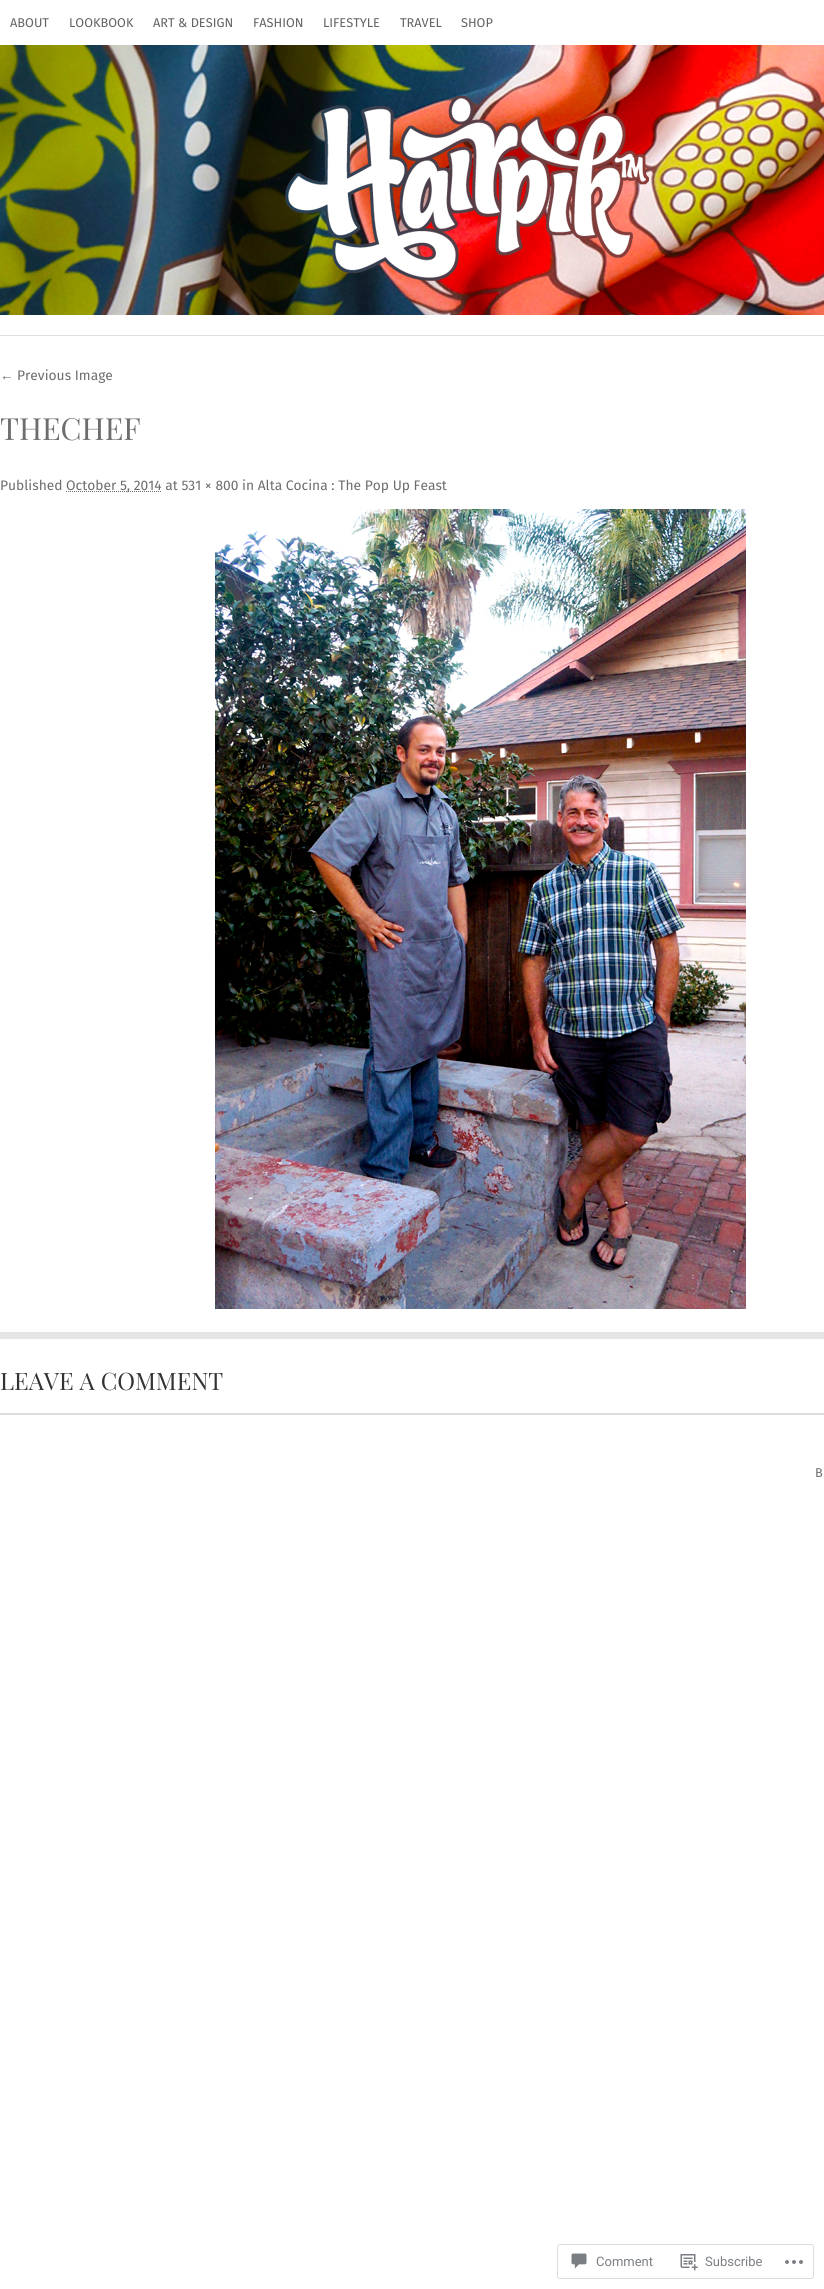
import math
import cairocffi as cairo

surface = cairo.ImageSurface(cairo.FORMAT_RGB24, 824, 2289)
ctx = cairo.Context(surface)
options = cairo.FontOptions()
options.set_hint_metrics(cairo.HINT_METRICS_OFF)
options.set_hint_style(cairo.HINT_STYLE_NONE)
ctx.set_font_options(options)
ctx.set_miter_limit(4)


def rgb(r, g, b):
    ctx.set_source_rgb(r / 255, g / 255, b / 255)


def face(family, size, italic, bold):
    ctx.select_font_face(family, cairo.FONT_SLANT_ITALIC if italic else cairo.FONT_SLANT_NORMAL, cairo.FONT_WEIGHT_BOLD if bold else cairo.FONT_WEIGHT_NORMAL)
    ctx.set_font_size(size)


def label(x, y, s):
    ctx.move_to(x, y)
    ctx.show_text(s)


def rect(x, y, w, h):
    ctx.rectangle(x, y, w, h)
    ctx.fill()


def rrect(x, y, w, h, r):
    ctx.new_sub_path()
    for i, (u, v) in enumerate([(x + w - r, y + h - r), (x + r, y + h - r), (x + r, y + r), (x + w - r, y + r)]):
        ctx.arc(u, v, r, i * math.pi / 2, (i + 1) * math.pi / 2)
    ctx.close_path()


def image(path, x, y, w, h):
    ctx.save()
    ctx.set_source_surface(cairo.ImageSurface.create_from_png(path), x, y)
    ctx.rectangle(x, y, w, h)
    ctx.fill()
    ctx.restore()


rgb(255, 255, 255)
ctx.paint()
face('Fira Sans', 12.75, 0, 0)
rgb(99, 99, 99)
label(10, 27, 'ABOUT')
label(69, 27, 'LOOKBOOK')
label(153, 27, 'ART & DESIGN')
label(253, 27, 'FASHION')
label(323, 27, 'LIFESTYLE')
label(400, 27, 'TRAVEL')
label(461, 27, 'SHOP')
rgb(224, 224, 224)
rect(0, 335, 824, 1)
image('image0.png', 0, 45, 824, 270)
face('Liberation Sans', 13.8, 0, 0)
rgb(109, 109, 109)
label(0, 380, '←')
face('Fira Sans', 13.8, 0, 0)
label(17, 380, 'Previous Image')
face('Playfair Display', 30.5, 0, 0)
label(0, 440, 'THECHEF')
face('Fira Sans', 13.8, 0, 0)
label(0, 490, 'Published')
ctx.new_path()
ctx.move_to(66, 491.5)
ctx.line_to(162, 491.5)
ctx.set_line_width(1)
ctx.set_dash([1, 1])
ctx.stroke()
label(66, 490, 'October 5, 2014 at 531 × 800 in Alta Cocina : The Pop Up Feast')
image('image1.png', 215, 509, 531, 800)
rgb(229, 229, 229)
rect(0, 1332, 824, 7)
face('Playfair Display', 24, 0, 0)
rgb(51, 51, 51)
label(0, 1390, 'LEAVE A COMMENT')
rgb(220, 220, 222)
rect(0, 1413, 824, 2)
face('Fira Sans', 12.75, 0, 0)
rgb(109, 109, 109)
label(815, 1477, 'B')
rrect(557.5, 2244.5, 256, 34, 2.5)
rgb(221, 221, 223)
ctx.set_dash([])
ctx.stroke()
image('image2.png', 571, 2253, 16, 16)
face('Roboto', 13, 0, 0)
rgb(123, 127, 133)
label(596, 2266, 'Comment')
image('image3.png', 680, 2254, 18, 17)
label(705, 2266, 'Subscribe')
image('image4.png', 785, 2260, 18, 4)
surface.write_to_png('render.png')
